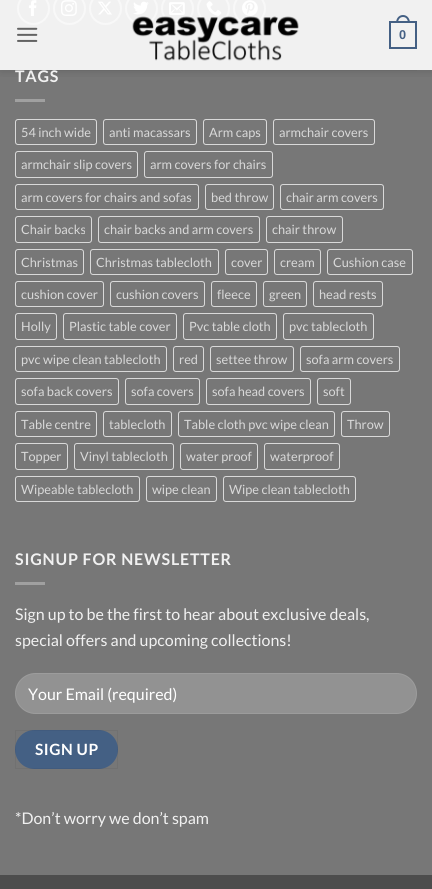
import math
import cairocffi as cairo

surface = cairo.ImageSurface(cairo.FORMAT_RGB24, 432, 889)
ctx = cairo.Context(surface)
options = cairo.FontOptions()
options.set_hint_metrics(cairo.HINT_METRICS_OFF)
options.set_hint_style(cairo.HINT_STYLE_NONE)
ctx.set_font_options(options)
ctx.set_miter_limit(4)


def rgb(r, g, b):
    ctx.set_source_rgb(r / 255, g / 255, b / 255)


def face(family, size, italic, bold):
    ctx.select_font_face(family, cairo.FONT_SLANT_ITALIC if italic else cairo.FONT_SLANT_NORMAL, cairo.FONT_WEIGHT_BOLD if bold else cairo.FONT_WEIGHT_NORMAL)
    ctx.set_font_size(size)


def label(x, y, s):
    ctx.move_to(x, y)
    ctx.show_text(s)


def tracked(x, y, s, letter, word):
    ctx.move_to(x, y)
    for ch in s:
        ctx.show_text(ch)
        ctx.rel_move_to(letter + word * (ch == ' '), 0)


def rect(x, y, w, h):
    ctx.rectangle(x, y, w, h)
    ctx.fill()


def rrect(x, y, w, h, r):
    ctx.new_sub_path()
    for i, (u, v) in enumerate([(x + w - r, y + h - r), (x + r, y + h - r), (x + r, y + r), (x + w - r, y + r)]):
        ctx.arc(u, v, r, i * math.pi / 2, (i + 1) * math.pi / 2)
    ctx.close_path()


def soft_shadow(x, y, w, h, r, blur, alpha):
    ctx.push_group_with_content(cairo.CONTENT_ALPHA)
    ctx.set_operator(cairo.OPERATOR_SOURCE)
    for i in range(15, -16, -2):
        e = blur * i / 6
        if min(w, h) + 2 * e > 0:
            ctx.set_source_rgba(0, 0, 0, alpha * math.erfc((i - 1) / 8.5) / 2)
            rrect(x - e, y - e, w + 2 * e, h + 2 * e, max(0, min(r + e + blur * .6, min(w, h) / 2 + e)))
            ctx.fill()
    ctx.mask(ctx.pop_group())


def image(path, x, y, w, h):
    ctx.save()
    ctx.set_source_surface(cairo.ImageSurface.create_from_png(path), x, y)
    ctx.rectangle(x, y, w, h)
    ctx.fill()
    ctx.restore()


rgb(119, 119, 119)
ctx.paint()
rgb(241, 241, 241)
rect(0, 0, 432, 70)
ctx.arc(33.5, 8.5, 15.5, 0, 2 * math.pi)
rgb(248, 248, 248)
ctx.stroke()
image('image2.png', 28, 0, 9, 16)
ctx.arc(69.5, 8.5, 15.5, 0, 2 * math.pi)
ctx.stroke()
image('image3.png', 61, 0, 16, 16)
ctx.arc(105.5, 8.5, 15.5, 0, 2 * math.pi)
ctx.stroke()
image('image4.png', 98, 1, 14, 14)
ctx.arc(141.5, 8.5, 15.5, 0, 2 * math.pi)
ctx.stroke()
image('image5.png', 133, 1, 16, 14)
ctx.arc(177.5, 8.5, 15.5, 0, 2 * math.pi)
ctx.stroke()
image('image6.png', 169, 2, 16, 13)
ctx.arc(213.5, 8.5, 15.5, 0, 2 * math.pi)
ctx.stroke()
image('image7.png', 206, 1, 16, 15)
ctx.arc(249.5, 8.5, 15.5, 0, 2 * math.pi)
ctx.stroke()
image('image8.png', 242, 0, 16, 16)
ctx.save()
ctx.rectangle(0, 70, 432, 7)
ctx.clip()
rgb(0, 0, 0)
soft_shadow(1, 1, 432, 70, 0, 5, 0.15)
ctx.restore()
image('image0.png', 17, 27, 21, 15)
image('image1.png', 132, 16, 167, 45)
ctx.rectangle(390, 22, 26, 26)
rgb(68, 96, 132)
ctx.stroke()
ctx.set_fill_rule(cairo.FILL_RULE_EVEN_ODD)
ctx.new_path()
ctx.move_to(403, 15)
ctx.curve_to(407.5, 15, 410, 19, 410, 23)
ctx.line_to(396, 23)
ctx.curve_to(396, 19, 398.5, 15, 403, 15)
ctx.close_path()
ctx.move_to(403, 17)
ctx.curve_to(406.5, 17, 408, 20, 408, 23)
ctx.line_to(398, 23)
ctx.curve_to(398, 20, 399.5, 17, 403, 17)
ctx.close_path()
ctx.fill()
face('Liberation Sans', 12.75, 0, 1)
label(399, 39, '0')
ctx.set_source_rgba(0.29, 0.29, 0.29, 0.1)
rect(15, 70, 402, 1)
face('Lato', 16, 0, 1)
rgb(241, 241, 241)
tracked(15, 82, 'TAGS', 0.8, 0)
rgb(160, 160, 160)
rect(15, 99, 30, 3)
rrect(15.5, 119.5, 81, 25, 2.5)
rgb(217, 217, 217)
ctx.set_line_width(1)
ctx.stroke()
face('Lato', 12.75, 0, 0)
label(21, 137, '54 inch wide')
rrect(103.5, 119.5, 93, 25, 2.5)
ctx.stroke()
label(109, 137, 'anti macassars')
rrect(203.5, 119.5, 63, 25, 2.5)
ctx.stroke()
label(209, 137, 'Arm caps')
rrect(273.5, 119.5, 101, 25, 2.5)
ctx.stroke()
label(279, 137, 'armchair covers')
rrect(15.5, 151.5, 122, 26, 2.5)
ctx.stroke()
label(21, 169, 'armchair slip covers')
rrect(144.5, 151.5, 128, 26, 2.5)
ctx.stroke()
label(150, 169, 'arm covers for chairs')
rrect(15.5, 184.5, 183, 25, 2.5)
ctx.stroke()
label(21, 202, 'arm covers for chairs and sofas')
rrect(205.5, 184.5, 68, 25, 2.5)
ctx.stroke()
label(211, 202, 'bed throw')
rrect(280.5, 184.5, 103, 25, 2.5)
ctx.stroke()
label(286, 202, 'chair arm covers')
rrect(15.5, 216.5, 76, 26, 2.5)
ctx.stroke()
label(21, 234, 'Chair backs')
rrect(98.5, 216.5, 161, 26, 2.5)
ctx.stroke()
label(104, 234, 'chair backs and arm covers')
rrect(266.5, 216.5, 76, 26, 2.5)
ctx.stroke()
label(272, 234, 'chair throw')
rrect(15.5, 249.5, 68, 25, 2.5)
ctx.stroke()
label(21, 267, 'Christmas')
rrect(90.5, 249.5, 128, 25, 2.5)
ctx.stroke()
label(96, 267, 'Christmas tablecloth')
rrect(225.5, 249.5, 42, 25, 2.5)
ctx.stroke()
label(231, 267, 'cover')
rrect(274.5, 249.5, 46, 25, 2.5)
ctx.stroke()
label(280, 267, 'cream')
rrect(327.5, 249.5, 85, 25, 2.5)
ctx.stroke()
label(333, 267, 'Cushion case')
rrect(15.5, 281.5, 88, 25, 2.5)
ctx.stroke()
label(21, 299, 'cushion cover')
rrect(110.5, 281.5, 94, 25, 2.5)
ctx.stroke()
label(116, 299, 'cushion covers')
rrect(211.5, 281.5, 45, 25, 2.5)
ctx.stroke()
label(217, 299, 'fleece')
rrect(263.5, 281.5, 43, 25, 2.5)
ctx.stroke()
label(269, 299, 'green')
rrect(313.5, 281.5, 69, 25, 2.5)
ctx.stroke()
label(319, 299, 'head rests')
rrect(15.5, 313.5, 41, 26, 2.5)
ctx.stroke()
label(21, 331, 'Holly')
rrect(63.5, 313.5, 113, 26, 2.5)
ctx.stroke()
label(69, 331, 'Plastic table cover')
rrect(183.5, 313.5, 93, 26, 2.5)
ctx.stroke()
label(189, 331, 'Pvc table cloth')
rrect(283.5, 313.5, 90, 26, 2.5)
ctx.stroke()
label(289, 331, 'pvc tablecloth')
rrect(15.5, 346.5, 151, 25, 2.5)
ctx.stroke()
label(21, 364, 'pvc wipe clean tablecloth')
rrect(173.5, 346.5, 30, 25, 2.5)
ctx.stroke()
label(179, 364, 'red')
rrect(210.5, 346.5, 83, 25, 2.5)
ctx.stroke()
label(216, 364, 'settee throw')
rrect(300.5, 346.5, 99, 25, 2.5)
ctx.stroke()
label(306, 364, 'sofa arm covers')
rrect(15.5, 378.5, 103, 26, 2.5)
ctx.stroke()
label(21, 396, 'sofa back covers')
rrect(125.5, 378.5, 74, 26, 2.5)
ctx.stroke()
label(131, 396, 'sofa covers')
rrect(206.5, 378.5, 104, 26, 2.5)
ctx.stroke()
label(212, 396, 'sofa head covers')
rrect(317.5, 378.5, 33, 26, 2.5)
ctx.stroke()
label(323, 396, 'soft')
rrect(15.5, 411.5, 81, 25, 2.5)
ctx.stroke()
label(21, 429, 'Table centre')
rrect(103.5, 411.5, 68, 25, 2.5)
ctx.stroke()
label(109, 429, 'tablecloth')
rrect(178.5, 411.5, 156, 25, 2.5)
ctx.stroke()
label(184, 429, 'Table cloth pvc wipe clean')
rrect(341.5, 411.5, 48, 25, 2.5)
ctx.stroke()
label(347, 429, 'Throw')
rrect(15.5, 443.5, 52, 26, 2.5)
ctx.stroke()
label(21, 461, 'Topper')
rrect(74.5, 443.5, 99, 26, 2.5)
ctx.stroke()
label(80, 461, 'Vinyl tablecloth')
rrect(180.5, 443.5, 77, 26, 2.5)
ctx.stroke()
label(186, 461, 'water proof')
rrect(264.5, 443.5, 75, 26, 2.5)
ctx.stroke()
label(270, 461, 'waterproof')
rrect(15.5, 476.5, 124, 25, 2.5)
ctx.stroke()
label(21, 494, 'Wipeable tablecloth')
rrect(146.5, 476.5, 70, 25, 2.5)
ctx.stroke()
label(152, 494, 'wipe clean')
rrect(223.5, 476.5, 132, 25, 2.5)
ctx.stroke()
label(229, 494, 'Wipe clean tablecloth')
face('Lato', 16, 0, 1)
rgb(241, 241, 241)
tracked(15, 565, 'SIGNUP FOR NEWSLETTER', 0.8, 0)
rgb(160, 160, 160)
rect(15, 582, 30, 3)
face('Lato', 16, 0, 0)
rgb(241, 241, 241)
label(15, 620, 'Sign up to be the first to hear about exclusive deals,')
label(15, 646, 'special offers and upcoming collections!')
rgb(146, 146, 146)
rrect(15, 673, 402, 41, 20.5)
ctx.fill()
rrect(15.5, 673.5, 401, 40, 20)
ctx.set_source_rgba(1, 1, 1, 0.09)
ctx.stroke()
rgb(255, 255, 255)
label(28, 700, 'Your Email (required)')
rgb(68, 96, 132)
rrect(15, 730, 103, 39, 19.5)
ctx.fill()
ctx.rectangle(15.5, 730.5, 102, 38)
ctx.set_source_rgba(0, 0, 0, 0.05)
ctx.stroke()
face('Lato', 15.5, 0, 1)
rgb(255, 255, 255)
tracked(35, 755, 'SIGN UP', 0.5, 0)
face('Lato', 16, 0, 0)
rgb(241, 241, 241)
label(15, 824, '*Don’t worry we don’t spam')
rgb(77, 77, 77)
rect(0, 875, 432, 14)
surface.write_to_png('render.png')
